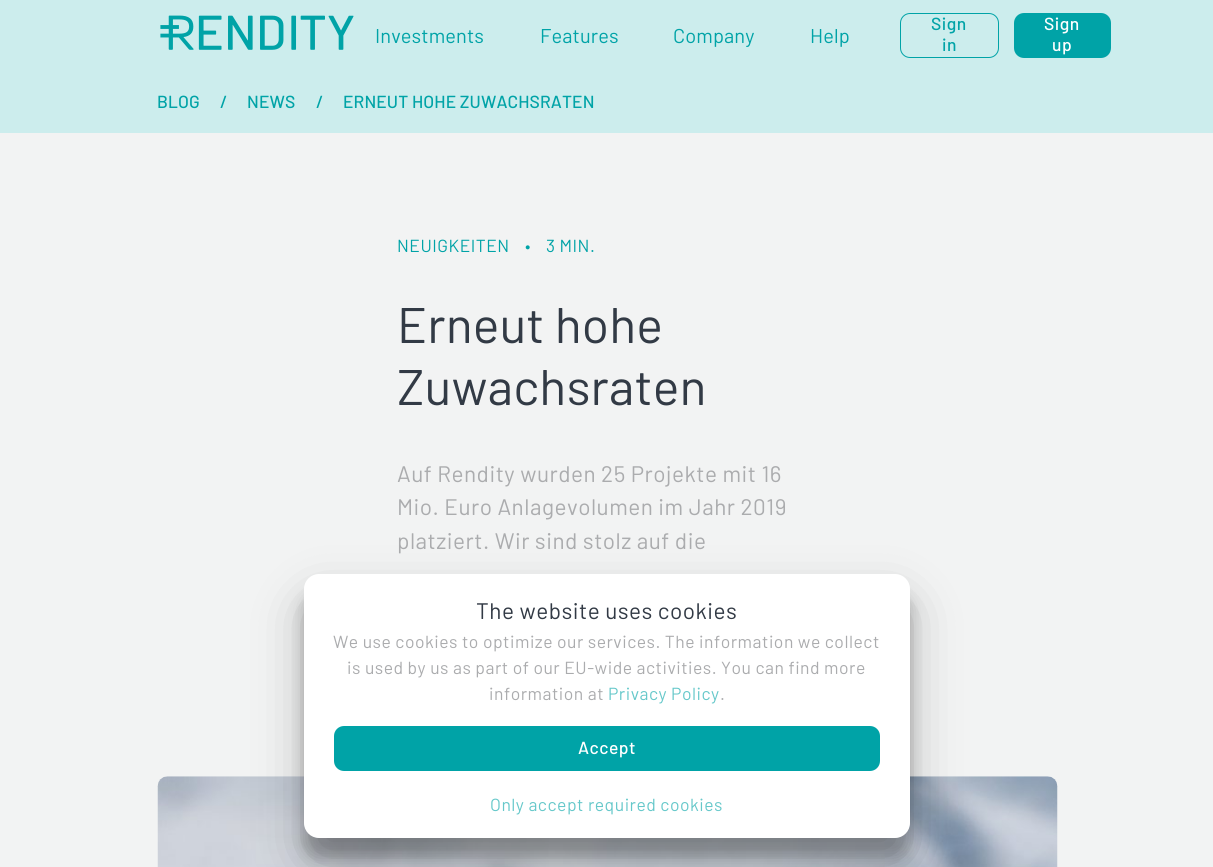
import math
import cairocffi as cairo

surface = cairo.ImageSurface(cairo.FORMAT_RGB24, 1213, 867)
ctx = cairo.Context(surface)
options = cairo.FontOptions()
options.set_hint_metrics(cairo.HINT_METRICS_OFF)
options.set_hint_style(cairo.HINT_STYLE_NONE)
ctx.set_font_options(options)
ctx.set_miter_limit(4)


def rgb(r, g, b):
    ctx.set_source_rgb(r / 255, g / 255, b / 255)


def face(family, size, italic, bold):
    ctx.select_font_face(family, cairo.FONT_SLANT_ITALIC if italic else cairo.FONT_SLANT_NORMAL, cairo.FONT_WEIGHT_BOLD if bold else cairo.FONT_WEIGHT_NORMAL)
    ctx.set_font_size(size)


def label(x, y, s):
    ctx.move_to(x, y)
    ctx.show_text(s)


def tracked(x, y, s, letter, word):
    ctx.move_to(x, y)
    for ch in s:
        ctx.show_text(ch)
        ctx.rel_move_to(letter + word * (ch == ' '), 0)


def rect(x, y, w, h):
    ctx.rectangle(x, y, w, h)
    ctx.fill()


def rrect(x, y, w, h, r):
    ctx.new_sub_path()
    for i, (u, v) in enumerate([(x + w - r, y + h - r), (x + r, y + h - r), (x + r, y + r), (x + w - r, y + r)]):
        ctx.arc(u, v, r, i * math.pi / 2, (i + 1) * math.pi / 2)
    ctx.close_path()


def soft_shadow(x, y, w, h, r, blur, alpha):
    ctx.push_group_with_content(cairo.CONTENT_ALPHA)
    ctx.set_operator(cairo.OPERATOR_SOURCE)
    for i in range(15, -16, -2):
        e = blur * i / 6
        if min(w, h) + 2 * e > 0:
            ctx.set_source_rgba(0, 0, 0, alpha * math.erfc((i - 1) / 8.5) / 2)
            rrect(x - e, y - e, w + 2 * e, h + 2 * e, max(0, min(r + e + blur * .6, min(w, h) / 2 + e)))
            ctx.fill()
    ctx.mask(ctx.pop_group())


def image(path, x, y, w, h):
    ctx.save()
    ctx.set_source_surface(cairo.ImageSurface.create_from_png(path), x, y)
    ctx.rectangle(x, y, w, h)
    ctx.fill()
    ctx.restore()


rgb(204, 237, 237)
ctx.paint()
image('image0.png', 160, 15, 194, 35)
face('Barlow', 20, 0, 0)
rgb(0, 163, 167)
tracked(375, 43, 'Investments', 0.1, 0)
tracked(540, 43, 'Features', 0.1, 0)
tracked(673, 43, 'Company', 0.1, 0)
tracked(810, 43, 'Help', 0.1, 0)
rrect(900.5, 13.5, 98, 44, 9.5)
ctx.set_line_width(1)
ctx.stroke()
face('Barlow Medium', 17.5, 0, 0)
tracked(931, 30, 'Sign', 0.5, 0)
tracked(942, 51, 'in', 0.5, 0)
rrect(1014, 13, 97, 45, 10)
ctx.fill()
rgb(255, 255, 255)
tracked(1044, 30, 'Sign', 0.5, 0)
tracked(1052, 51, 'up', 0.5, 0)
rgb(0, 163, 167)
tracked(157, 108, 'BLOG', 0.1, 0)
label(220, 108, '/')
tracked(247, 108, 'NEWS', 0.1, 0)
label(316, 108, '/')
tracked(343, 108, 'ERNEUT HOHE ZUWACHSRATEN', 0.1, 0)
rgb(242, 243, 243)
rect(0, 133, 1213, 734)
face('Barlow', 17.5, 0, 0)
rgb(0, 163, 167)
tracked(397, 252, 'NEUIGKEITEN', 0.5, 0)
tracked(525, 252, '•', 0.5, 0)
tracked(546, 252, '3 MIN.', 0.5, 0)
face('Barlow', 50, 0, 0)
rgb(50, 58, 69)
tracked(397, 343, 'Erneut hohe', 0.1, 0)
tracked(397, 405, 'Zuwachsraten', 0.1, 0)
face('Barlow', 22.5, 0, 0)
rgb(171, 172, 174)
tracked(397, 482, 'Auf Rendity wurden 25 Projekte mit 16', 0.5, 0)
tracked(397, 515, 'Mio. Euro Anlagevolumen im Jahr 2019', 0.5, 0)
tracked(397, 549, 'platziert. Wir sind stolz auf die', 0.5, 0)
image('image1.png', 157, 776, 901, 91)
rgb(0, 0, 0)
soft_shadow(304, 599, 606, 264, 15, 25, 0.24)
soft_shadow(304, 594, 606, 264, 15, 7.5, 0.24)
rgb(255, 255, 255)
rrect(304, 574, 606, 264, 15)
ctx.fill()
rgb(50, 58, 69)
tracked(476, 619, 'The website uses cookies', 0.5, 0)
face('Barlow', 17.5, 0, 0)
rgb(171, 172, 174)
tracked(333, 648, 'We use cookies to optimize our services. The information we collect', 0.5, 0)
tracked(347, 674, 'is used by us as part of our EU-wide activities. You can find more', 0.5, 0)
tracked(489, 700, 'information at', 0.5, 0)
rgb(102, 200, 202)
tracked(608, 700, 'Privacy Policy', 0.5, 0)
rgb(171, 172, 174)
tracked(720, 700, '.', 0.5, 0)
rgb(0, 163, 167)
rrect(334, 726, 546, 45, 10)
ctx.fill()
face('Barlow Medium', 17.5, 0, 0)
rgb(255, 255, 255)
tracked(578, 754, 'Accept', 0.5, 0)
face('Barlow', 17.5, 0, 0)
rgb(102, 200, 202)
tracked(490, 811, 'Only accept required cookies', 0.5, 0)
surface.write_to_png('render.png')
